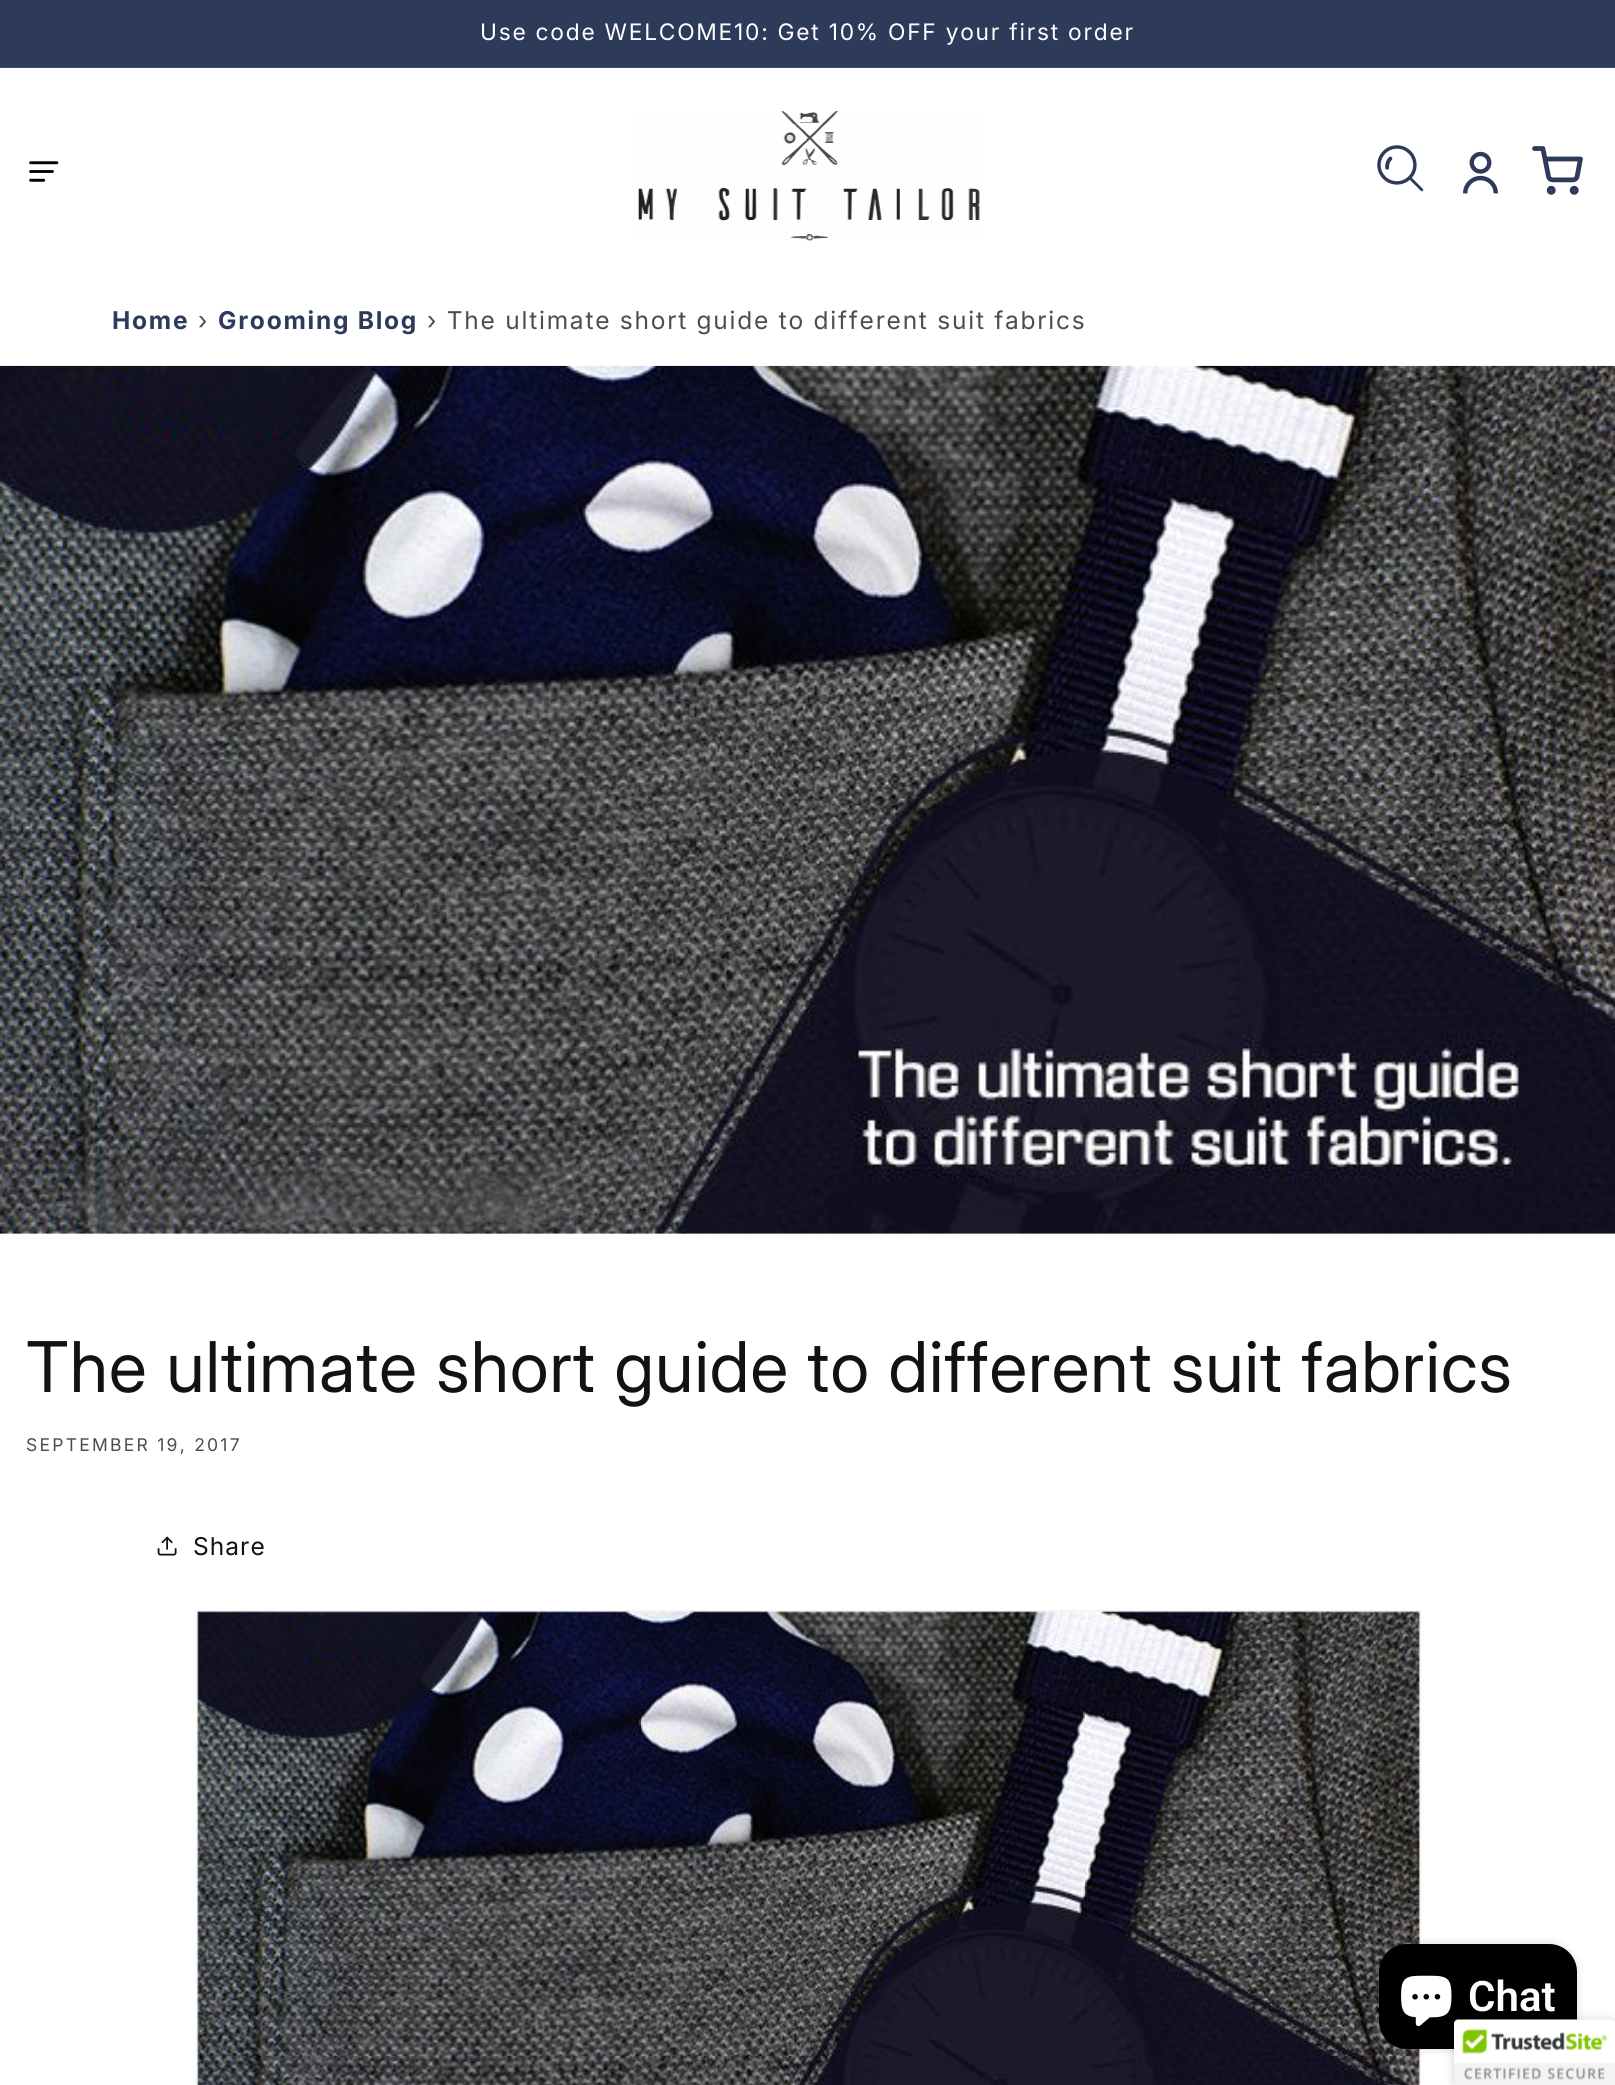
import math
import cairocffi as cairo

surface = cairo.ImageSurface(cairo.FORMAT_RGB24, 1615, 2085)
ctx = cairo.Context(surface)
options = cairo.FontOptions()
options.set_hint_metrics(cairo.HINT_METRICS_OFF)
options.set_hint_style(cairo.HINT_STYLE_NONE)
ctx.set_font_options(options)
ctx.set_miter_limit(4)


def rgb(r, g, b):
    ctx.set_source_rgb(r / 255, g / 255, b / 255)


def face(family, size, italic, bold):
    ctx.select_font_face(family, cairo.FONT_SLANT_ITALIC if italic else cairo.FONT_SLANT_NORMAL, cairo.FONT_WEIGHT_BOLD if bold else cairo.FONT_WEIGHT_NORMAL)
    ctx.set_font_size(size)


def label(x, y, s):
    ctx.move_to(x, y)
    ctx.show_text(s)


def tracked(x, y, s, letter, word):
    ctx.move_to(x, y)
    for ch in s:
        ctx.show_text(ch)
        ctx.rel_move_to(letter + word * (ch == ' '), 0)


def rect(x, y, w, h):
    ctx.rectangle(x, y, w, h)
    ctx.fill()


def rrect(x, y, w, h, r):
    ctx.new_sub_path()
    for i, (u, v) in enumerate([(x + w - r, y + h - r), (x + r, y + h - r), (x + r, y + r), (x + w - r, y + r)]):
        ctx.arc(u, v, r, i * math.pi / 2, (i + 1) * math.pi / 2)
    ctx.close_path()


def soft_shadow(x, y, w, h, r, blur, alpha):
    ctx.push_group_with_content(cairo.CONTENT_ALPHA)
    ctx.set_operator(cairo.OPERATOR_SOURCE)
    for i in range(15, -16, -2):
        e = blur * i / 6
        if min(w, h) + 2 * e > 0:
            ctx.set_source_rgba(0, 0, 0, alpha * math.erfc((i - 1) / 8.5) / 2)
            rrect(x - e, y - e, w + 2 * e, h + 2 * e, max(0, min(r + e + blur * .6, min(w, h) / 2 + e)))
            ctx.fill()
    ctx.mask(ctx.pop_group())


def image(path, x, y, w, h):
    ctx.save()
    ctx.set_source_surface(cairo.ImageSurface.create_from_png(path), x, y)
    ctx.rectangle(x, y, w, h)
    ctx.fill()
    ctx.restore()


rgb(255, 255, 255)
ctx.paint()
rgb(46, 58, 89)
rect(0, 0, 1615, 67)
rgb(63, 74, 102)
rect(0, 67, 1615, 1)
face('Inter', 22.75, 0, 0)
rgb(255, 255, 255)
tracked(480, 40, 'Use code WELCOME10: Get 10% OFF your first order', 1.75, 0)
image('image0.png', 29, 161, 30, 21)
image('image1.png', 638, 111, 342, 130)
image('image2.png', 1377, 145, 47, 47)
image('image3.png', 1463, 151, 35, 43)
image('image4.png', 1532, 146, 51, 49)
face('Inter', 24.5, 0, 1)
rgb(46, 58, 89)
tracked(112, 329, 'Home', 1.75, 0)
face('Inter', 24.5, 0, 0)
rgb(77, 77, 77)
tracked(198, 329, '›', 1.75, 0)
face('Inter', 24.5, 0, 1)
rgb(46, 58, 89)
tracked(218, 329, 'Grooming Blog', 1.75, 0)
face('Inter', 24.5, 0, 0)
rgb(77, 77, 77)
tracked(427, 329, '› The ultimate short guide to different suit fabrics', 1.75, 0)
rgb(232, 232, 232)
rect(0, 1233, 1615, 1)
image('image5.png', 0, 365, 1615, 869)
face('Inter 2', 70, 0, 0)
rgb(18, 18, 18)
tracked(26, 1392, 'The ultimate short guide to different suit fabrics', 1.05, 0)
face('Inter', 17.5, 0, 0)
rgb(77, 77, 77)
tracked(26, 1451, 'SEPTEMBER 19, 2017', 2.25, 0)
image('image6.png', 157, 1536, 20, 20)
face('Inter', 24.5, 0, 0)
rgb(18, 18, 18)
tracked(193, 1555, 'Share', 1.05, 0)
ctx.rectangle(197, 1611, 1223, 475)
rgb(243, 243, 243)
ctx.stroke()
image('image7.png', 197, 1611, 1223, 474)
rgb(0, 0, 0)
soft_shadow(1379, 1944, 198, 105, 28, 4.5, 0.15)
rgb(0, 0, 0)
rrect(1379, 1944, 198, 105, 28)
ctx.fill()
image('image8.png', 1401, 1975, 51, 52)
face('Roboto SemiBold', 42, 0, 0)
rgb(255, 255, 255)
label(1468, 2011, 'Chat')
rgb(0, 0, 0)
soft_shadow(1454, 2020, 161, 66, 4, 4.5, 0.2)
rgb(255, 255, 255)
ctx.new_path()
ctx.move_to(1458, 2020)
ctx.line_to(1615, 2020)
ctx.line_to(1615, 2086)
ctx.line_to(1454, 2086)
ctx.line_to(1454, 2024)
ctx.curve_to(1454, 2022, 1456, 2020, 1458, 2020)
ctx.close_path()
ctx.fill()
image('image9.png', 1454, 2019, 161, 66)
surface.write_to_png('render.png')
